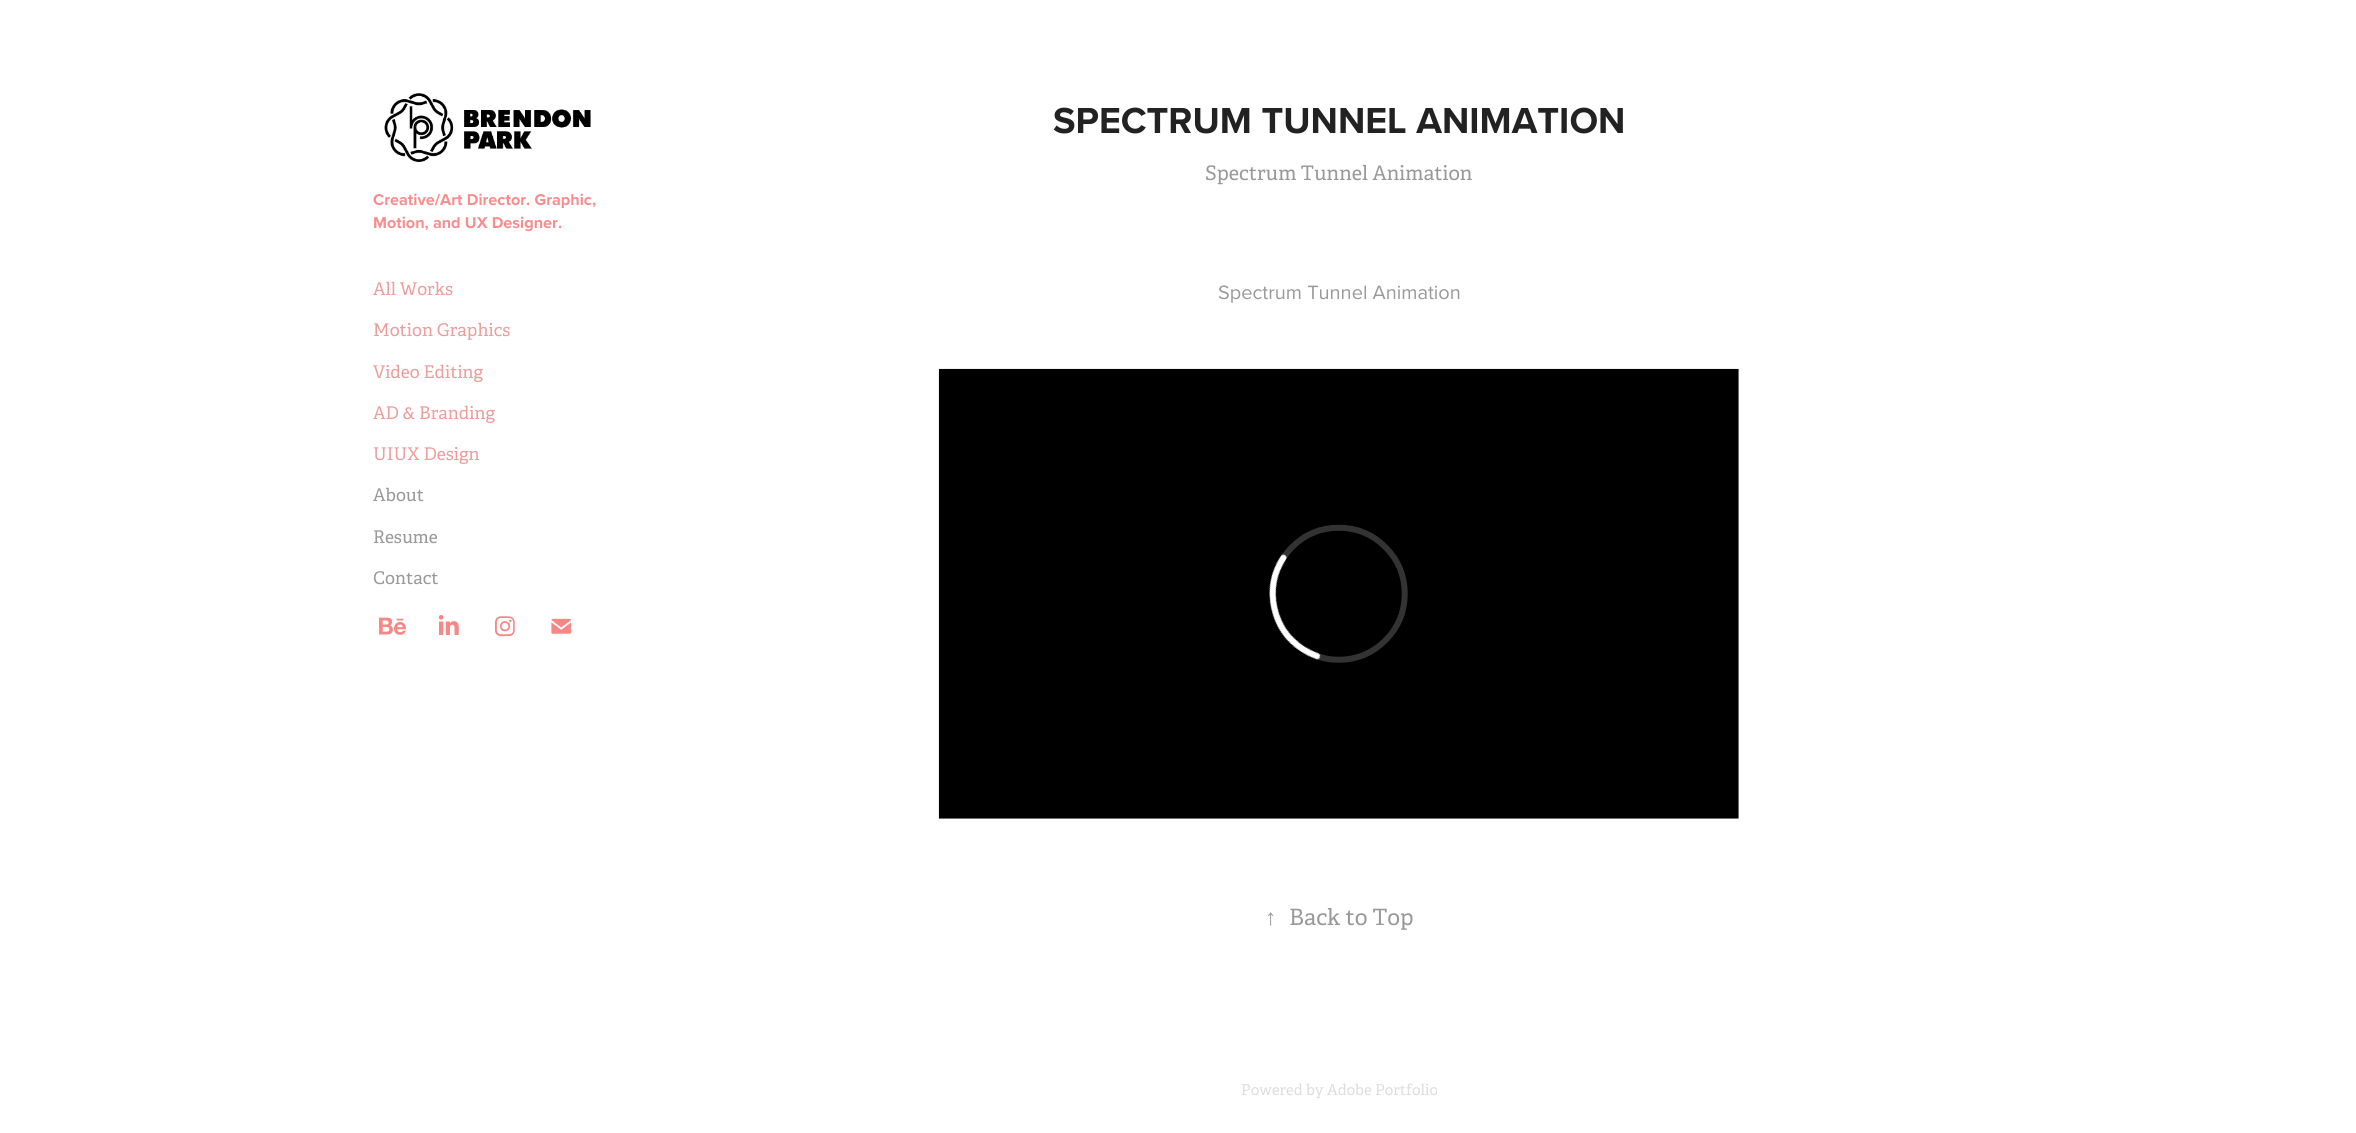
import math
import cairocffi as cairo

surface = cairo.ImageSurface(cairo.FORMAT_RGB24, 2356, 1133)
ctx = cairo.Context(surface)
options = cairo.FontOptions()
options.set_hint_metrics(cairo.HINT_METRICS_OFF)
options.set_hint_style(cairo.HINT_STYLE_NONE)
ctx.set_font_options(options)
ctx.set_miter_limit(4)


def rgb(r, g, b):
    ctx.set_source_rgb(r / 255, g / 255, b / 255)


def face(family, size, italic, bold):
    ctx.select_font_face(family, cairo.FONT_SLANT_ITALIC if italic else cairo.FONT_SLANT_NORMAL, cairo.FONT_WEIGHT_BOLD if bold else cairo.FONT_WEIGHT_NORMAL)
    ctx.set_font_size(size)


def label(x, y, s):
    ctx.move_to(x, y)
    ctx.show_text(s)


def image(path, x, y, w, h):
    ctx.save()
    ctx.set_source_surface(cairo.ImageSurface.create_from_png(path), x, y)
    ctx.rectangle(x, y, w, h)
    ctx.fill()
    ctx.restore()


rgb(255, 255, 255)
ctx.paint()
image('image0.png', 384, 93, 207, 69)
face('Proxima Nova', 16.25, 0, 1)
rgb(249, 141, 141)
label(373, 205, 'Creative/Art Director. Graphic,')
label(373, 228, 'Motion, and UX Designer.')
face('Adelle', 17.5, 0, 0)
rgb(239, 157, 157)
label(373, 295, 'All Works')
label(373, 336, 'Motion Graphics')
label(373, 378, 'Video Editing')
label(373, 419, 'AD & Branding')
label(373, 460, 'UIUX Design')
rgb(153, 153, 153)
label(373, 501, 'About')
label(373, 543, 'Resume')
label(373, 584, 'Contact')
image('image1.png', 379, 617, 27, 18)
image('image2.png', 438, 615, 21, 20)
image('image3.png', 495, 616, 20, 21)
image('image4.png', 551, 618, 21, 16)
face('Proxima Nova', 37.5, 0, 1)
rgb(34, 34, 34)
label(1053, 133, 'SPECTRUM TUNNEL ANIMATION')
face('Adelle', 20, 0, 0)
rgb(153, 153, 153)
label(1205, 180, 'Spectrum Tunnel Animation')
face('Proxima Nova', 20, 0, 0)
label(1218, 299, 'Spectrum Tunnel Animation')
image('image5.png', 938, 368, 801, 451)
face('Liberation Serif', 22.5, 0, 0)
label(1265, 925, '↑')
face('Adelle', 22.5, 0, 0)
label(1289, 925, 'Back to Top')
face('Adelle', 15, 0, 0)
rgb(221, 221, 221)
label(1241, 1095, 'Powered by Adobe Portfolio')
surface.write_to_png('render.png')
